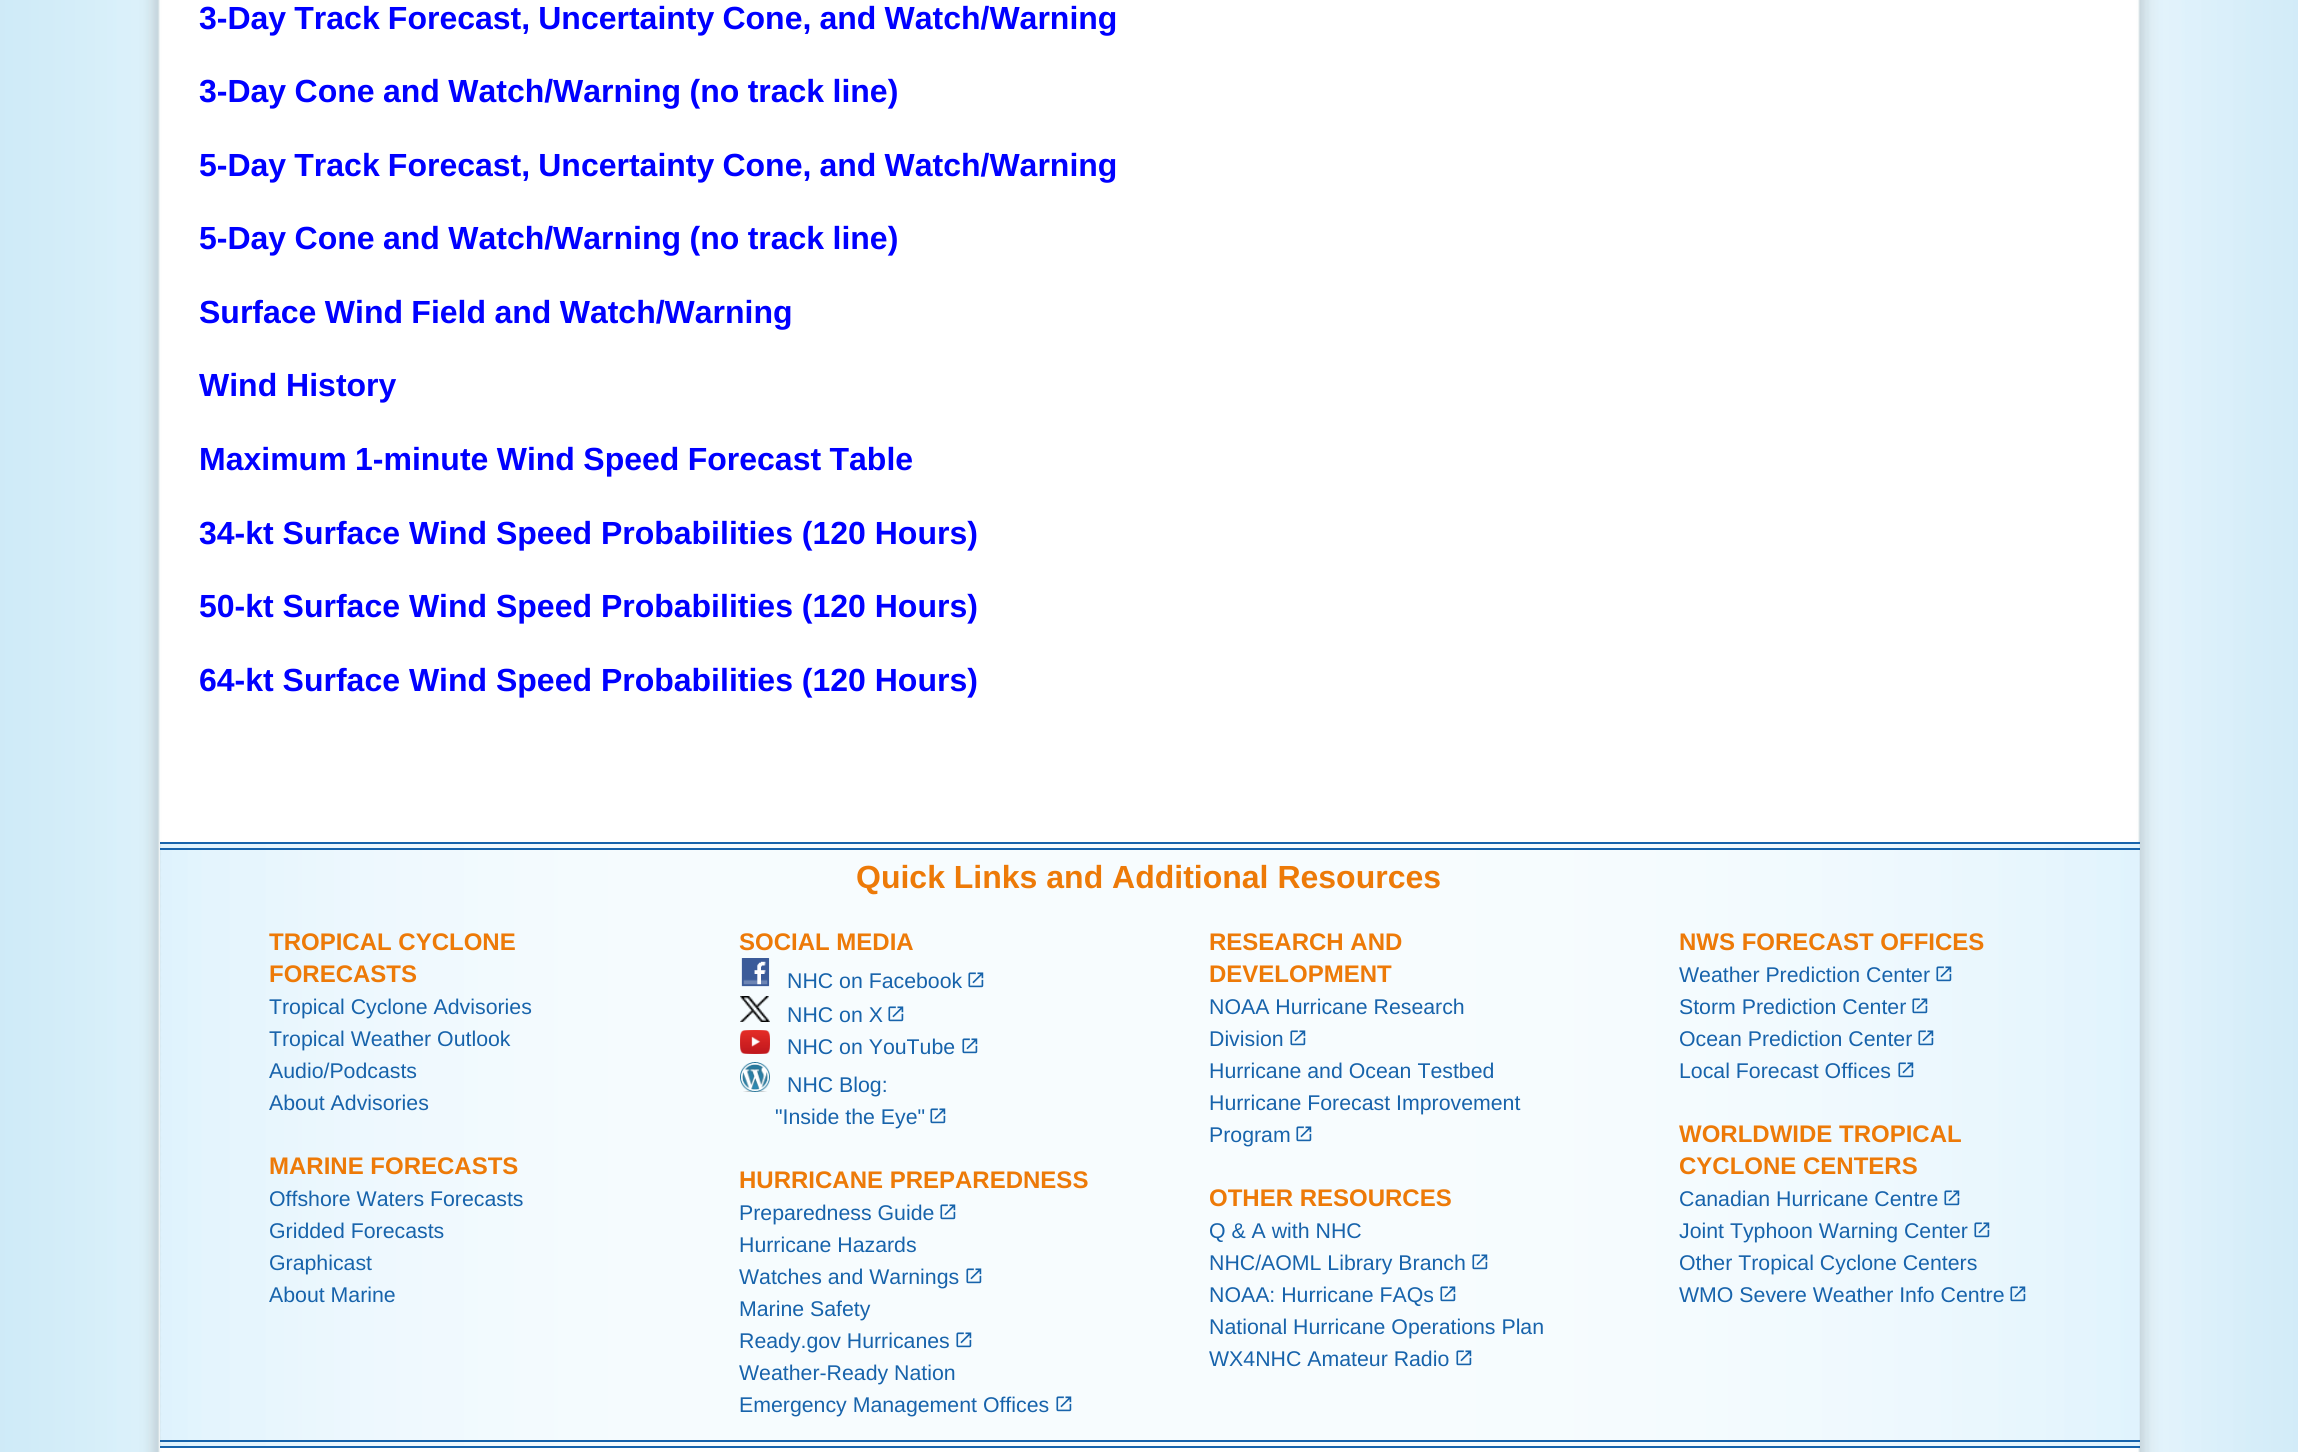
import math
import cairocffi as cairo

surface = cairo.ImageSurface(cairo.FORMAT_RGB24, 2298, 1452)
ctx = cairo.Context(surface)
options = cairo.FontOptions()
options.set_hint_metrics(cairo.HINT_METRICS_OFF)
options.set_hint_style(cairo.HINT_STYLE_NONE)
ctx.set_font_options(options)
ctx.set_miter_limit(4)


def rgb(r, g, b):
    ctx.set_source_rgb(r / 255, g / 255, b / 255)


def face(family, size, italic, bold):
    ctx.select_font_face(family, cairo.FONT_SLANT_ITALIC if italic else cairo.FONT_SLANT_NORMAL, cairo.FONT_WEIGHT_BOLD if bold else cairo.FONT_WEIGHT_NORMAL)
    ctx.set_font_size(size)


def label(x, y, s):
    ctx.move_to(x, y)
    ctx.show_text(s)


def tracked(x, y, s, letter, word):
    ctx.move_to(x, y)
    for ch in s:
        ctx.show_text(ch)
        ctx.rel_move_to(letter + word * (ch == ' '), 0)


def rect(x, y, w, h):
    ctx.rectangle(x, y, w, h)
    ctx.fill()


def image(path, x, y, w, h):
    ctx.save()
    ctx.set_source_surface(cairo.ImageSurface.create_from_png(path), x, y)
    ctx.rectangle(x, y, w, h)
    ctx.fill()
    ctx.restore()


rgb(255, 255, 255)
ctx.paint()
image('image0.png', 0, 0, 2298, 1452)
face('Liberation Sans', 32, 0, 1)
rgb(0, 0, 255)
tracked(199, 29, '3-Day Track Forecast, Uncertainty Cone, and Watch/Warning', 0, -0.75)
tracked(199, 102, '3-Day Cone and Watch/Warning (no track line)', 0, -0.5)
tracked(199, 176, '5-Day Track Forecast, Uncertainty Cone, and Watch/Warning', 0, -0.75)
tracked(199, 249, '5-Day Cone and Watch/Warning (no track line)', 0, -0.5)
tracked(199, 323, 'Surface Wind Field and Watch/Warning', 0, -0.5)
label(199, 396, 'Wind History')
tracked(199, 470, 'Maximum 1-minute Wind Speed Forecast Table', 0, -0.5)
label(199, 544, '34-kt Surface Wind Speed Probabilities (120 Hours)')
label(199, 617, '50-kt Surface Wind Speed Probabilities (120 Hours)')
label(199, 691, '64-kt Surface Wind Speed Probabilities (120 Hours)')
image('image1.png', 160, 844, 1980, 602)
rgb(23, 99, 171)
rect(160, 842, 1980, 2)
rect(160, 848, 1980, 2)
rect(160, 1440, 1980, 2)
rect(160, 1446, 1980, 2)
rgb(237, 122, 8)
label(856, 888, 'Quick Links and Additional Resources')
face('Liberation Sans', 24, 0, 1)
label(269, 950, 'TROPICAL CYCLONE')
label(269, 982, 'FORECASTS')
face('Liberation Sans', 21.3, 0, 0)
rgb(23, 99, 171)
label(269, 1014, 'Tropical Cyclone Advisories')
label(269, 1046, 'Tropical Weather Outlook')
label(269, 1078, 'Audio/Podcasts')
label(269, 1110, 'About Advisories')
face('Liberation Sans', 24, 0, 1)
rgb(237, 122, 8)
label(269, 1174, 'MARINE FORECASTS')
face('Liberation Sans', 21.3, 0, 0)
rgb(23, 99, 171)
label(269, 1206, 'Offshore Waters Forecasts')
label(269, 1238, 'Gridded Forecasts')
label(269, 1270, 'Graphicast')
label(269, 1302, 'About Marine')
face('Liberation Sans', 24, 0, 1)
rgb(237, 122, 8)
label(739, 950, 'SOCIAL MEDIA')
image('image2.png', 741, 958, 29, 29)
face('Liberation Sans', 21.3, 0, 0)
rgb(23, 99, 171)
label(787, 988, 'NHC on Facebook')
image('image3.png', 968, 972, 16, 16)
image('image4.png', 740, 996, 30, 26)
label(787, 1022, 'NHC on X')
image('image3.png', 888, 1006, 16, 16)
image('image5.png', 740, 1030, 30, 24)
label(787, 1054, 'NHC on YouTube')
image('image3.png', 962, 1038, 16, 16)
image('image6.png', 740, 1062, 30, 30)
label(787, 1092, 'NHC Blog:')
label(775, 1124, '"Inside the Eye"')
image('image3.png', 930, 1108, 16, 16)
face('Liberation Sans', 24, 0, 1)
rgb(237, 122, 8)
label(739, 1188, 'HURRICANE PREPAREDNESS')
face('Liberation Sans', 21.3, 0, 0)
rgb(23, 99, 171)
label(739, 1220, 'Preparedness Guide')
image('image3.png', 940, 1204, 16, 16)
label(739, 1252, 'Hurricane Hazards')
label(739, 1284, 'Watches and Warnings')
image('image3.png', 966, 1268, 16, 16)
label(739, 1316, 'Marine Safety')
label(739, 1348, 'Ready.gov Hurricanes')
image('image3.png', 956, 1332, 16, 16)
label(739, 1380, 'Weather-Ready Nation')
label(739, 1412, 'Emergency Management Offices')
image('image3.png', 1056, 1396, 16, 16)
face('Liberation Sans', 24, 0, 1)
rgb(237, 122, 8)
label(1209, 950, 'RESEARCH AND')
label(1209, 982, 'DEVELOPMENT')
face('Liberation Sans', 21.3, 0, 0)
rgb(23, 99, 171)
label(1209, 1014, 'NOAA Hurricane Research')
label(1209, 1046, 'Division')
image('image3.png', 1290, 1030, 16, 16)
label(1209, 1078, 'Hurricane and Ocean Testbed')
label(1209, 1110, 'Hurricane Forecast Improvement')
label(1209, 1142, 'Program')
image('image3.png', 1296, 1126, 16, 16)
face('Liberation Sans', 24, 0, 1)
rgb(237, 122, 8)
label(1209, 1206, 'OTHER RESOURCES')
face('Liberation Sans', 21.3, 0, 0)
rgb(23, 99, 171)
label(1209, 1238, 'Q & A with NHC')
label(1209, 1270, 'NHC/AOML Library Branch')
image('image7.png', 1472, 1254, 16, 16)
label(1209, 1302, 'NOAA: Hurricane FAQs')
image('image3.png', 1440, 1286, 16, 16)
label(1209, 1334, 'National Hurricane Operations Plan')
label(1209, 1366, 'WX4NHC Amateur Radio')
image('image3.png', 1456, 1350, 16, 16)
face('Liberation Sans', 24, 0, 1)
rgb(237, 122, 8)
label(1679, 950, 'NWS FORECAST OFFICES')
face('Liberation Sans', 21.3, 0, 0)
rgb(23, 99, 171)
label(1679, 982, 'Weather Prediction Center')
image('image8.png', 1936, 966, 16, 16)
label(1679, 1014, 'Storm Prediction Center')
image('image9.png', 1912, 998, 16, 16)
label(1679, 1046, 'Ocean Prediction Center')
image('image9.png', 1918, 1030, 16, 16)
label(1679, 1078, 'Local Forecast Offices')
image('image9.png', 1898, 1062, 16, 16)
face('Liberation Sans', 24, 0, 1)
rgb(237, 122, 8)
label(1679, 1142, 'WORLDWIDE TROPICAL')
label(1679, 1174, 'CYCLONE CENTERS')
face('Liberation Sans', 21.3, 0, 0)
rgb(23, 99, 171)
label(1679, 1206, 'Canadian Hurricane Centre')
image('image10.png', 1944, 1190, 16, 16)
label(1679, 1238, 'Joint Typhoon Warning Center')
image('image11.png', 1974, 1222, 16, 16)
label(1679, 1270, 'Other Tropical Cyclone Centers')
label(1679, 1302, 'WMO Severe Weather Info Centre')
image('image12.png', 2010, 1286, 16, 16)
surface.write_to_png('render.png')
